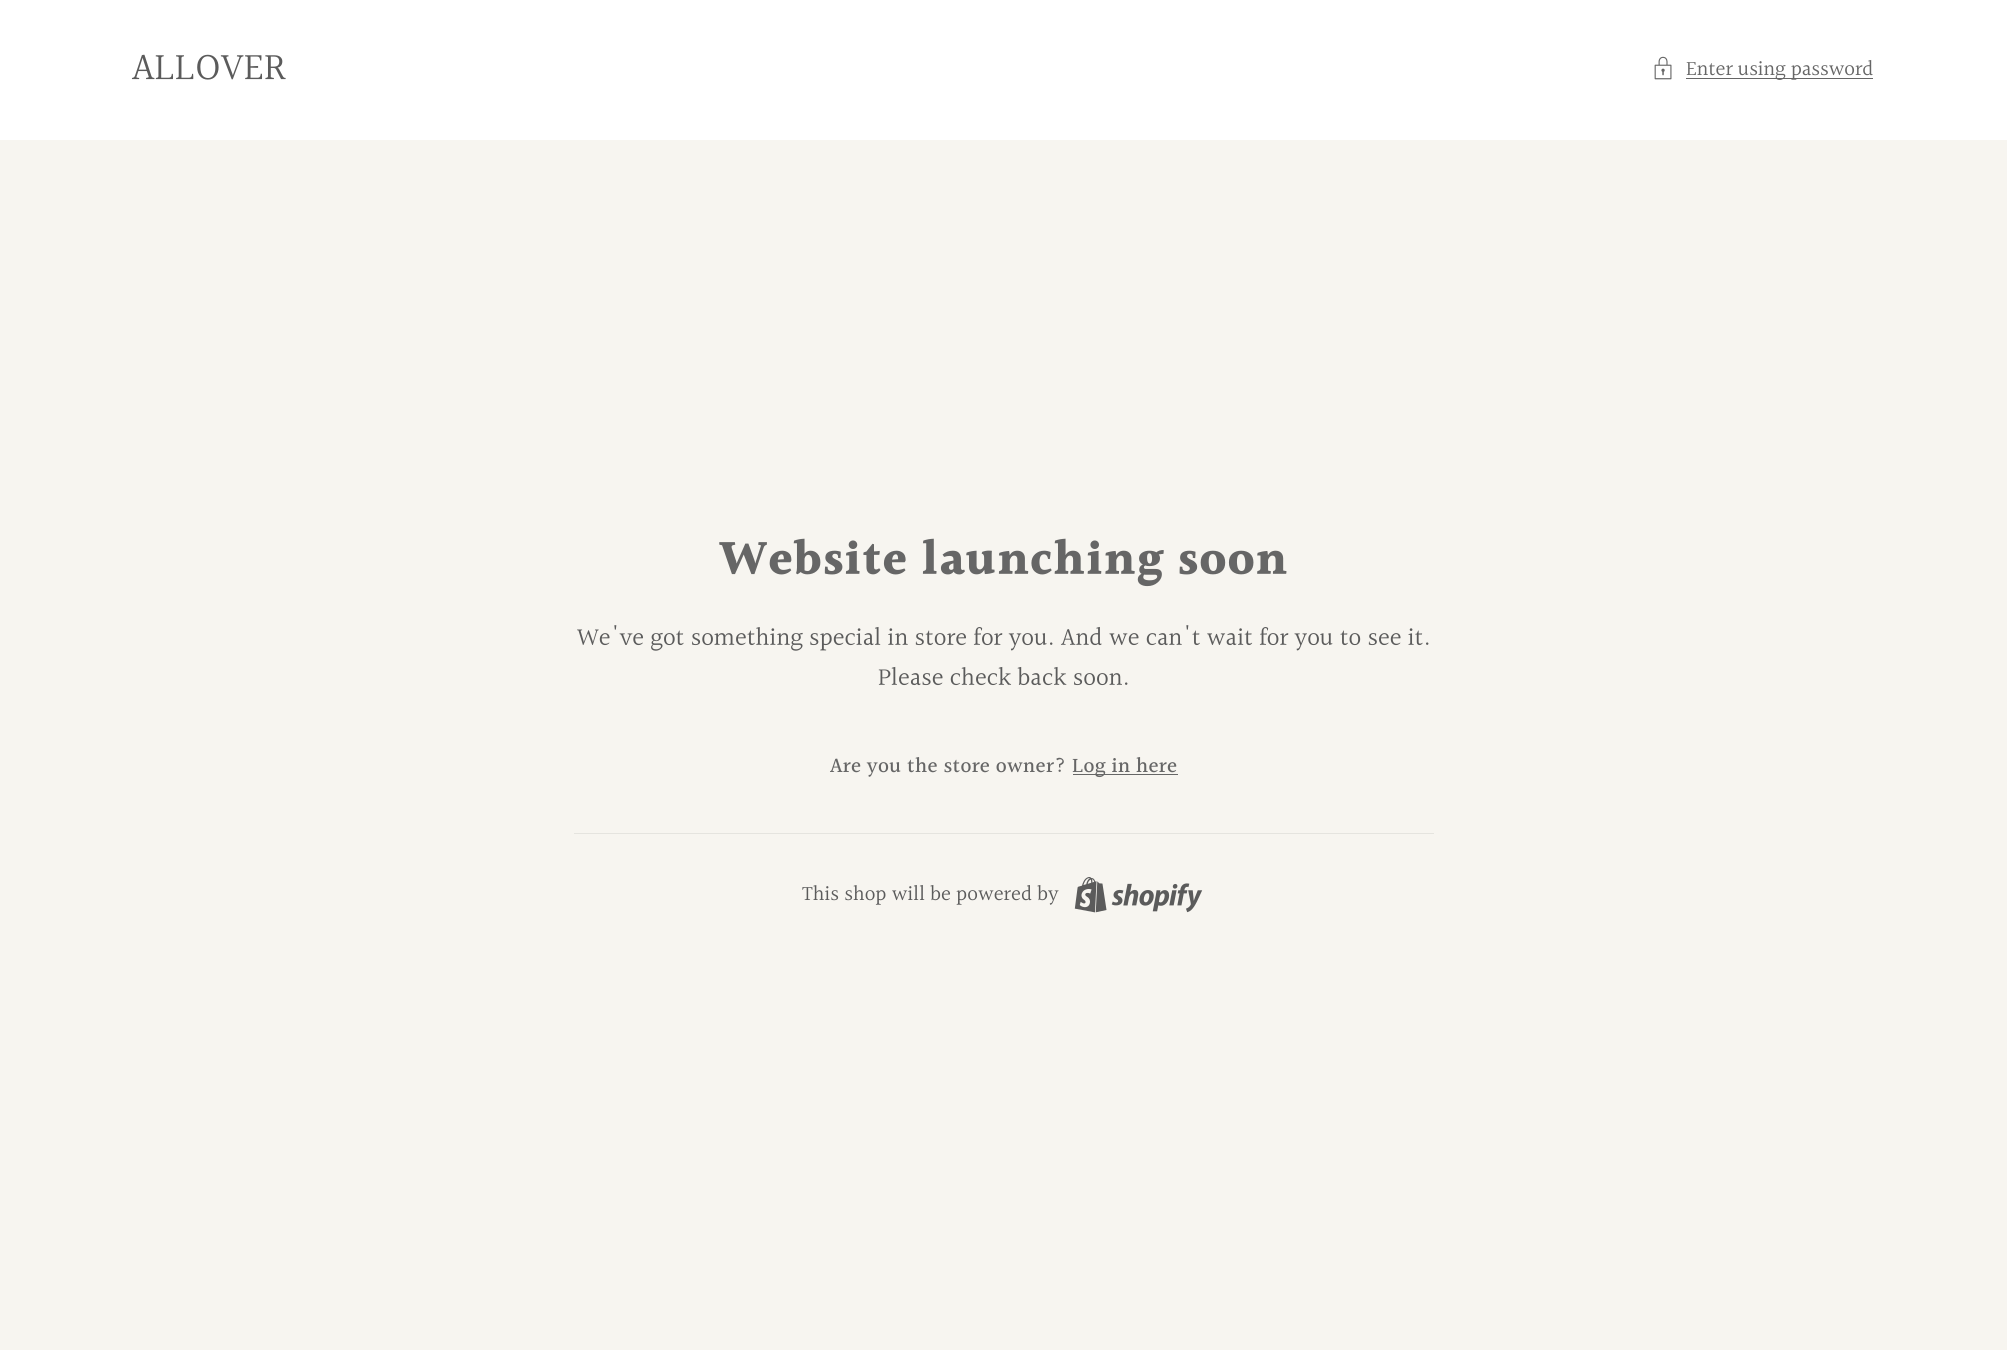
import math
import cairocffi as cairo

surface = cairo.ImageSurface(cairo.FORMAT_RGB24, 2007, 1350)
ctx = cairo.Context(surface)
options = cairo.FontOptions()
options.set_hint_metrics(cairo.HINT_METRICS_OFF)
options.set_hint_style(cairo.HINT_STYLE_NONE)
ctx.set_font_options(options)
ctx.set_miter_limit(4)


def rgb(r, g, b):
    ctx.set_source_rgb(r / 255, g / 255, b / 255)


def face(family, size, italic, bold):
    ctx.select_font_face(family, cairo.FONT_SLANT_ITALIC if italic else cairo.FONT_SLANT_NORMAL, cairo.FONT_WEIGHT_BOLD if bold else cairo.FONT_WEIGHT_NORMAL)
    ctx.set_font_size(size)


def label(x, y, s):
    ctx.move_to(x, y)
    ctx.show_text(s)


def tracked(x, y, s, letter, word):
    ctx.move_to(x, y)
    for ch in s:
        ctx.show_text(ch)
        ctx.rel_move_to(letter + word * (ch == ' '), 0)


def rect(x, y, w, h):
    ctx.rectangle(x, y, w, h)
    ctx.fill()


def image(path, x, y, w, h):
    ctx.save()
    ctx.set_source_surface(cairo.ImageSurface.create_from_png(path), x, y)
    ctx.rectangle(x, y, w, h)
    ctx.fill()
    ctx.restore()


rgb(247, 245, 240)
ctx.paint()
rgb(255, 255, 255)
rect(0, 0, 2007, 140)
face('Halant', 39, 0, 0)
rgb(91, 91, 91)
label(132, 81, 'ALLOVER')
image('image0.png', 1654, 56, 18, 24)
rgb(102, 102, 102)
rect(1686, 78, 187, 1)
face('Halant', 21, 0, 0)
tracked(1686, 76, 'Enter using password', -0.1, 0)
face('Halant', 48.75, 0, 1)
tracked(719, 576, 'Website launching soon', 1.3, 0)
face('Halant', 25, 0, 0)
rgb(91, 91, 91)
label(577, 646, 'We\'ve got something special in store for you. And we can\'t wait for you to see it.')
label(878, 686, 'Please check back soon.')
face('Halant Medium', 21, 0, 0)
rgb(102, 102, 102)
tracked(830, 773, 'Are you the store owner?', 0.3, 0)
rect(1073, 774, 105, 1)
tracked(1072, 773, 'Log in here', 0.3, 0)
rgb(229, 228, 223)
rect(574, 833, 860, 1)
face('Halant', 21, 0, 0)
rgb(91, 91, 91)
label(802, 901, 'This shop will be powered by')
image('image1.png', 1074, 877, 129, 36)
surface.write_to_png('render.png')
